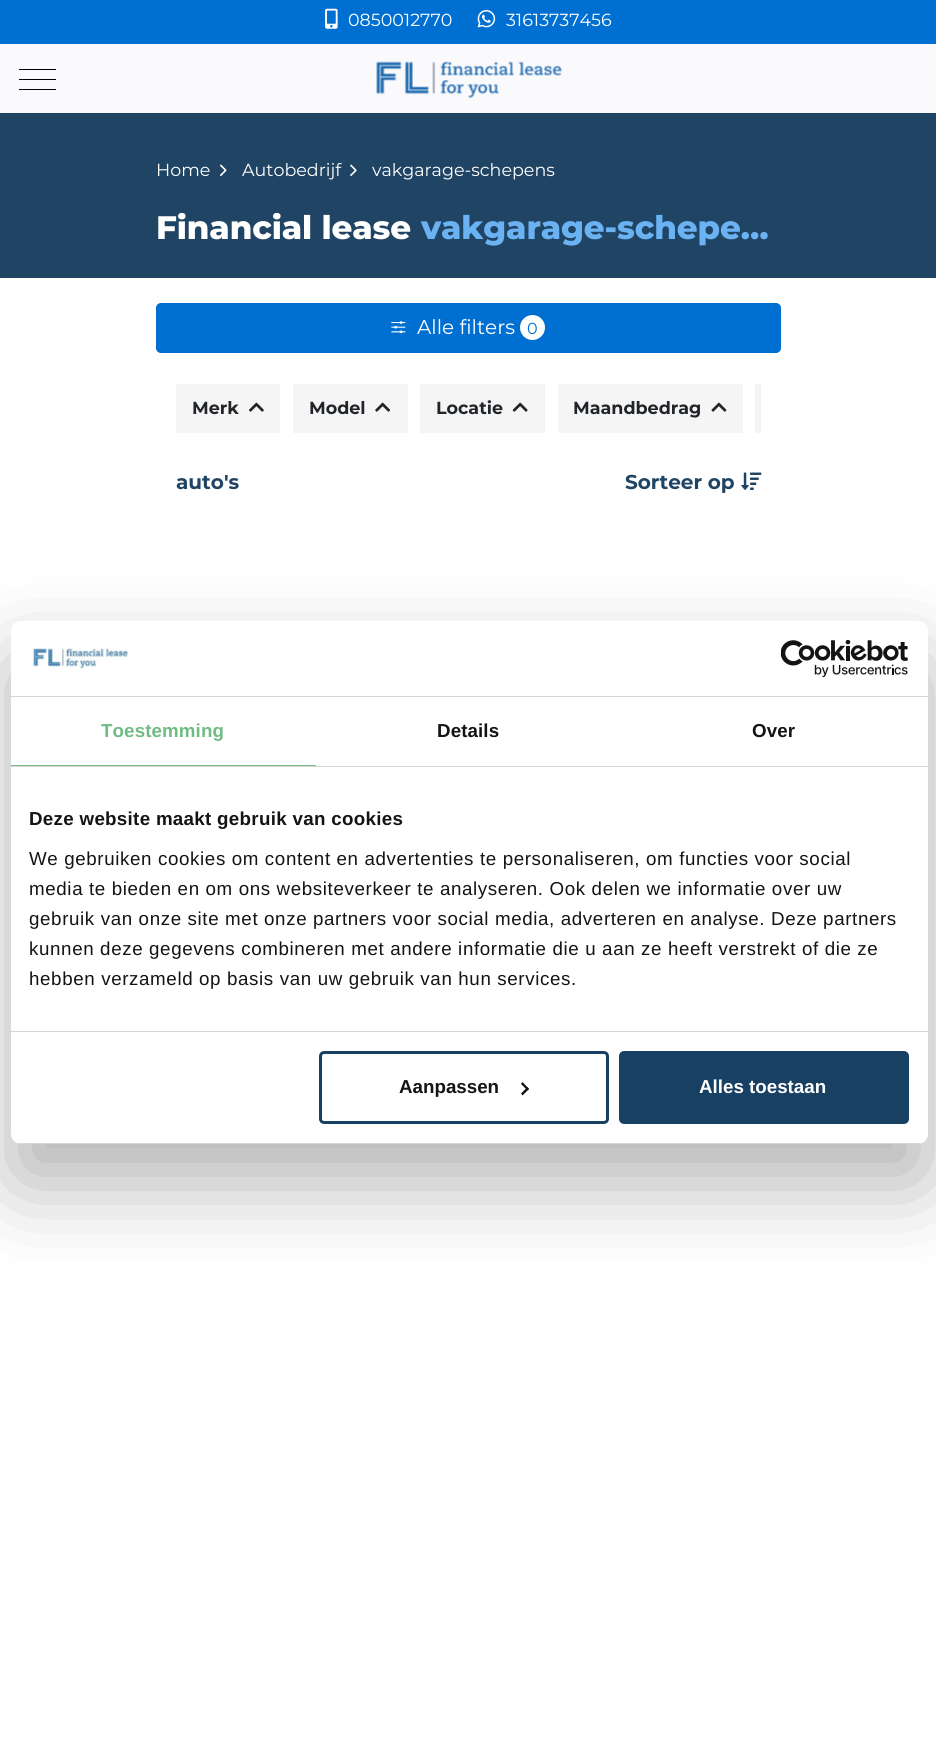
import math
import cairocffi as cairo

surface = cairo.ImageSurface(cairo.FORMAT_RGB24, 936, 1763)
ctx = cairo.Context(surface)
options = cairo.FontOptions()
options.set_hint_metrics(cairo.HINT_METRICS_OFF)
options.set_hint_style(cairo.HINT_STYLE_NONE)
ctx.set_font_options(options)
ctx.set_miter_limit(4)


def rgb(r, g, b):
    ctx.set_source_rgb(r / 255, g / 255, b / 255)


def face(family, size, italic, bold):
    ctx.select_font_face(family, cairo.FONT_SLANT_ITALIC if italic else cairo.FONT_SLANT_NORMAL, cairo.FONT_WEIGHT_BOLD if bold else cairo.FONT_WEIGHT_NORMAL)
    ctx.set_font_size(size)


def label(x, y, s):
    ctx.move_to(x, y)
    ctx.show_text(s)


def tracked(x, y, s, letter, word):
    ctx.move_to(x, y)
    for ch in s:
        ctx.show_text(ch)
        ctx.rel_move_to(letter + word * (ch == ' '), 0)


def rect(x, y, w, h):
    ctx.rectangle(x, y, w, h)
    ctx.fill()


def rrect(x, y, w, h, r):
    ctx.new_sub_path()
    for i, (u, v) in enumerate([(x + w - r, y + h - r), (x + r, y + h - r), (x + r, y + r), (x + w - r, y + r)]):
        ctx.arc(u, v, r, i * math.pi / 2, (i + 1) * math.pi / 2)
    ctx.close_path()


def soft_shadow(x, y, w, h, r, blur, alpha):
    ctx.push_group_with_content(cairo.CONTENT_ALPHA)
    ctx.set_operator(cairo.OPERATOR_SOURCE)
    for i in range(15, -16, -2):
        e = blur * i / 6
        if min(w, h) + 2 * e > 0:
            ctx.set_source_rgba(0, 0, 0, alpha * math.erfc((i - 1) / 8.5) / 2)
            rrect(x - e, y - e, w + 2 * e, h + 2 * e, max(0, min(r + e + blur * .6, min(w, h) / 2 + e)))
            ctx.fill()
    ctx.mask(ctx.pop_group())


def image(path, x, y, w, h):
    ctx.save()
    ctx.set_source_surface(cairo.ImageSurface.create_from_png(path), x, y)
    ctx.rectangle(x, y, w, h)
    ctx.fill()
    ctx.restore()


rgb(255, 255, 255)
ctx.paint()
rgb(250, 250, 252)
rect(0, 44, 936, 69)
rgb(0, 111, 210)
rect(0, 0, 936, 44)
image('image0.png', 325, 8, 13, 21)
face('Montserrat', 17.5, 0, 0)
rgb(255, 255, 255)
label(348, 26, '0850012770')
image('image1.png', 477, 10, 19, 18)
label(506, 26, '31613737456')
rgb(0, 0, 0)
rect(19, 79, 37, 1)
rect(19, 69, 37, 1)
rect(19, 89, 37, 1)
image('image2.png', 376, 61, 186, 38)
rgb(32, 68, 100)
rect(0, 113, 936, 165)
rgb(255, 255, 255)
label(156, 176, 'Home')
image('image3.png', 220, 164, 7, 12)
label(242, 176, 'Autobedrijf')
image('image4.png', 350, 164, 7, 12)
label(372, 176, 'vakgarage-schepens')
face('Montserrat ExtraBold', 32.5, 0, 0)
tracked(156, 239, 'Financial lease', -0.1, 0)
rgb(107, 178, 242)
tracked(421, 239, 'vakgarage-schepe…', -0.1, 0)
rgb(0, 111, 210)
rrect(156, 303, 625, 50, 5)
ctx.fill()
image('image5.png', 391, 321, 15, 13)
face('Montserrat', 20, 0, 0)
rgb(255, 255, 255)
label(417, 334, 'Alle filters')
ctx.new_path()
ctx.arc(532.5, 327.5, 12.5, 0, 2 * math.pi)
ctx.fill()
face('Montserrat', 16, 0, 0)
rgb(0, 111, 210)
label(527, 334, '0')
rgb(245, 245, 245)
rect(176, 384, 104, 49)
face('Montserrat', 17.5, 0, 1)
rgb(33, 37, 41)
label(192, 414, 'Merk')
image('image6.png', 249, 402, 15, 10)
rgb(245, 245, 245)
rect(293, 384, 115, 49)
rgb(33, 37, 41)
label(309, 414, 'Model')
image('image7.png', 375, 402, 16, 10)
rgb(245, 245, 245)
rect(420, 384, 125, 49)
rgb(33, 37, 41)
label(436, 414, 'Locatie')
image('image8.png', 512, 402, 16, 10)
rgb(245, 245, 245)
rect(558, 384, 185, 49)
rgb(33, 37, 41)
label(573, 414, 'Maandbedrag')
image('image9.png', 711, 402, 16, 10)
rgb(245, 245, 245)
rect(755, 384, 6, 49)
face('Montserrat', 20, 0, 1)
rgb(32, 68, 100)
label(176, 489, 'auto\'s')
label(625, 489, 'Sorteer op')
image('image10.png', 741, 472, 21, 18)
rgb(0, 0, 0)
soft_shadow(11, 661, 917, 523, 10, 42.5, 0.3)
rgb(255, 255, 255)
rrect(11, 621, 917, 523, 10)
ctx.fill()
rgb(214, 214, 214)
rect(11, 696, 917, 1)
image('image11.png', 32, 646, 97, 25)
image('image12.png', 781, 640, 127, 38)
rect(11, 766, 917, 1)
rgb(112, 188, 132)
rect(11, 765, 305, 1)
face('Liberation Sans', 18.75, 0, 1)
tracked(101, 737, 'Toestemming', 0.1, 0)
rgb(20, 20, 20)
tracked(437, 737, 'Details', 0.1, 0)
tracked(752, 737, 'Over', 0.1, 0)
rgb(214, 214, 214)
rect(11, 1031, 917, 1)
rgb(20, 20, 20)
tracked(29, 825, 'Deze website maakt gebruik van cookies', 0.3, 0)
face('Liberation Sans', 18.75, 0, 0)
tracked(29, 865, 'We gebruiken cookies om content en advertenties te personaliseren, om functies voor social', 0.62, 0)
tracked(29, 895, 'media te bieden en om ons websiteverkeer te analyseren. Ook delen we informatie over uw', 0.62, 0)
tracked(29, 925, 'gebruik van onze site met onze partners voor social media, adverteren en analyse. Deze partners', 0.62, 0)
tracked(29, 955, 'kunnen deze gegevens combineren met andere informatie die u aan ze heeft verstrekt of die ze', 0.62, 0)
tracked(29, 985, 'hebben verzameld op basis van uw gebruik van hun services.', 0.62, 0)
ctx.save()
rrect(11, 621, 917, 523, 10)
ctx.clip()
rgb(214, 214, 214)
rect(11, 1143, 917, 1)
ctx.restore()
rrect(320.5, 1052.5, 287, 70, 3.5)
rgb(24, 64, 99)
ctx.set_line_width(3)
ctx.stroke()
face('Liberation Sans', 18.75, 0, 1)
rgb(20, 20, 20)
label(399, 1093, 'Aanpassen')
ctx.new_path()
ctx.move_to(522.5, 1082)
ctx.line_to(529, 1089)
ctx.line_to(527.5, 1090.5)
ctx.line_to(521, 1084)
ctx.close_path()
ctx.fill()
ctx.new_path()
ctx.move_to(527.5, 1087)
ctx.line_to(529, 1089)
ctx.line_to(522.5, 1095.5)
ctx.line_to(521, 1093.5)
ctx.close_path()
ctx.fill()
rgb(24, 64, 99)
rrect(620.5, 1052.5, 287, 70, 3.5)
ctx.fill_preserve()
ctx.stroke()
rgb(255, 255, 255)
label(699, 1093, 'Alles toestaan')
surface.write_to_png('render.png')
